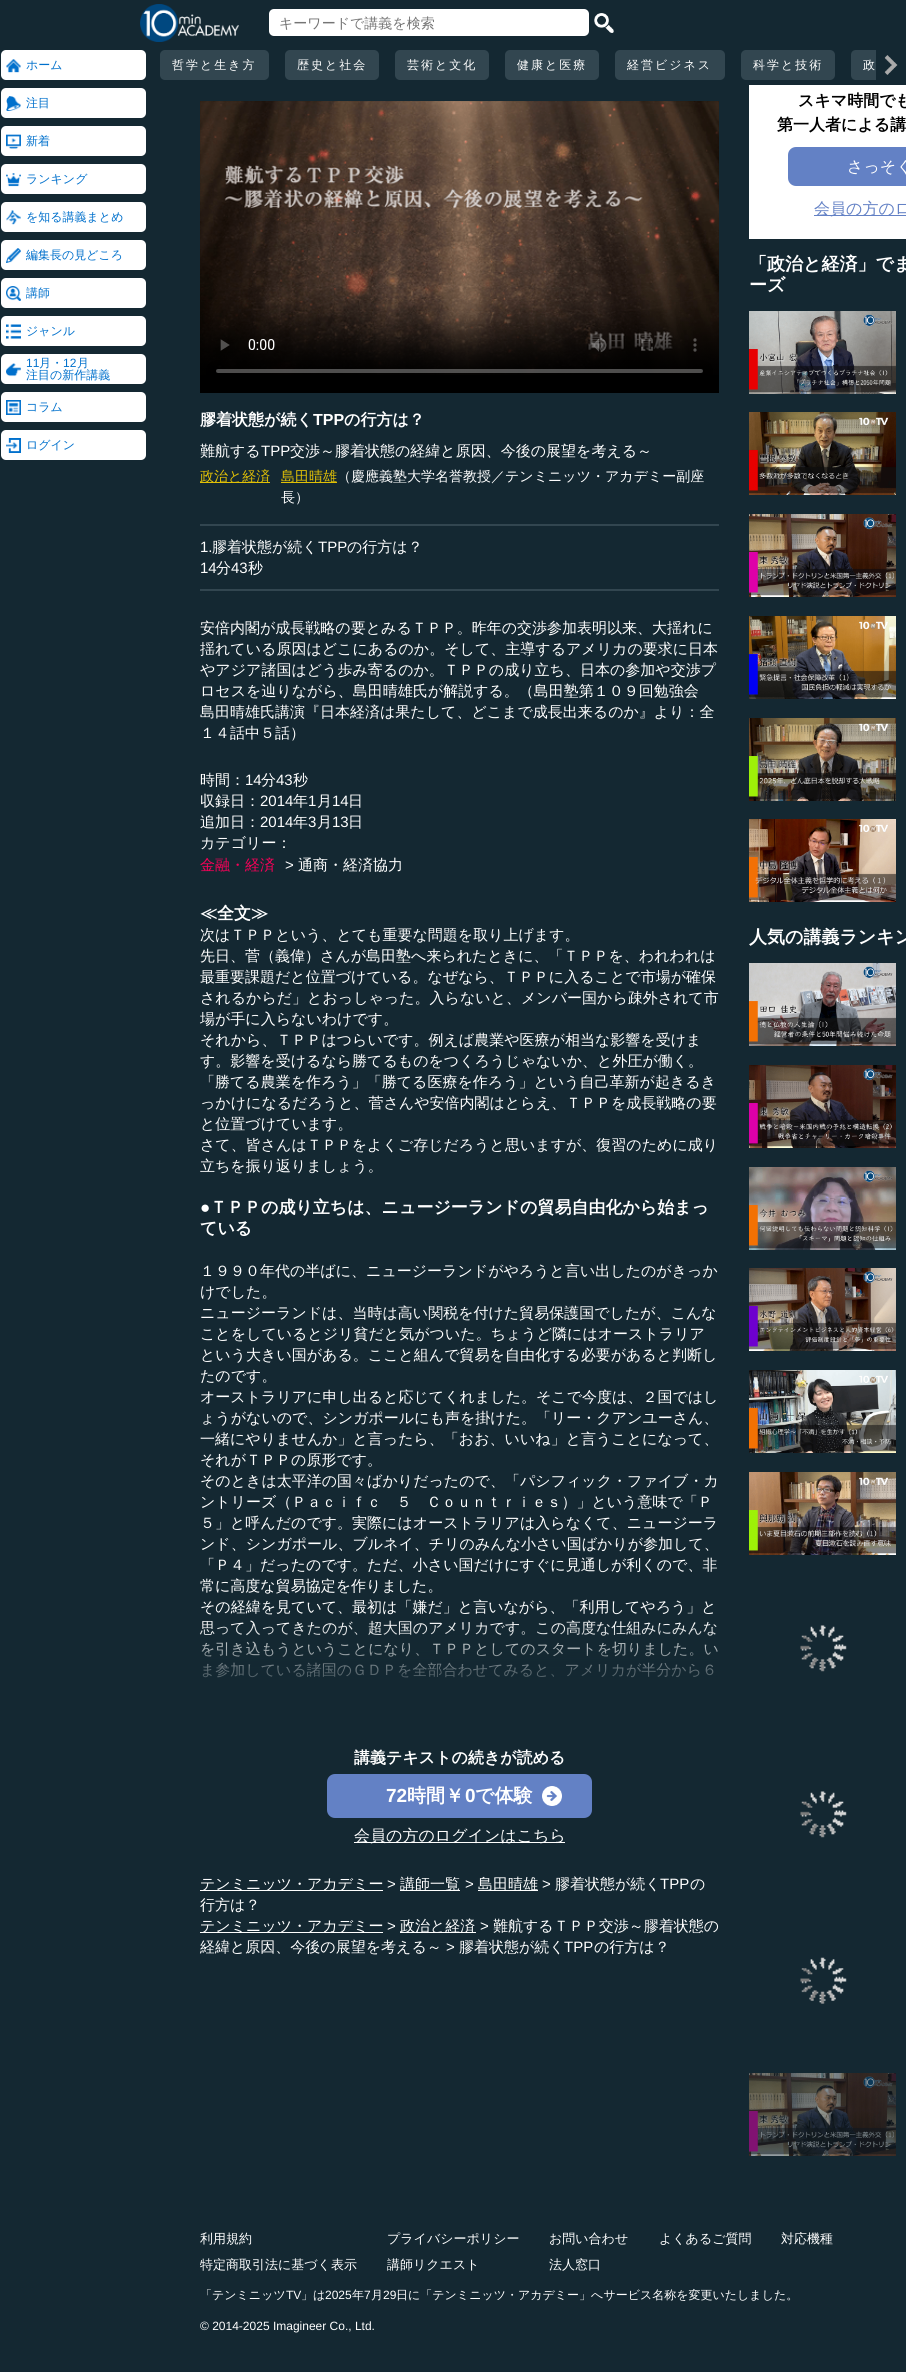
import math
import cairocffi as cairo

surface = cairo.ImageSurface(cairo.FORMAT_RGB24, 906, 2372)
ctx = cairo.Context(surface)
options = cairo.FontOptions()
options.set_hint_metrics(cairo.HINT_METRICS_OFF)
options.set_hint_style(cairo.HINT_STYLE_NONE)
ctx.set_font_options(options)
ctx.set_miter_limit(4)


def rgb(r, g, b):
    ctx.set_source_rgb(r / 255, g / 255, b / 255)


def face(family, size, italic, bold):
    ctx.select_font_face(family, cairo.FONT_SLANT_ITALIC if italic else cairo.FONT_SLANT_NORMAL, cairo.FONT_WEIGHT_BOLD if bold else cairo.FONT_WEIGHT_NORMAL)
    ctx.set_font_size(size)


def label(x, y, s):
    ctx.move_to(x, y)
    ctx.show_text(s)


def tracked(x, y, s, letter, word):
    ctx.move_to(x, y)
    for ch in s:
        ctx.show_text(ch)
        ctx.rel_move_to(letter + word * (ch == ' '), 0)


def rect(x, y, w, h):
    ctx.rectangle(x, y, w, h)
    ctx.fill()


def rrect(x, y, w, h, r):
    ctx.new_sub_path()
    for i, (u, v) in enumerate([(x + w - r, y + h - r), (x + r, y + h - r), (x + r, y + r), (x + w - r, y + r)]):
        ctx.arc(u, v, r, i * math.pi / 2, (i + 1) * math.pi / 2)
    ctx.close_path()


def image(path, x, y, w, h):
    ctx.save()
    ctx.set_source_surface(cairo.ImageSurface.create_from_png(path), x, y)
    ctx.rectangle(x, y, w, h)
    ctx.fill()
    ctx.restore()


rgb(20, 40, 50)
ctx.paint()
image('image0.png', 140, 4, 99, 38)
rgb(255, 255, 255)
rrect(269, 9, 320, 27, 5)
ctx.fill()
face('WenQuanYi Zen Hei Medium', 14, 0, 0)
rgb(117, 117, 117)
label(279, 28, 'キーワードで講義を検索')
image('image1.png', 594, 13, 20, 20)
rgb(50, 70, 80)
rrect(160, 50, 109, 30, 5)
ctx.fill()
face('WenQuanYi Zen Hei Medium', 12, 0, 0)
rgb(255, 255, 255)
tracked(172, 69, '哲学と生き方', 2, 0)
rgb(50, 70, 80)
rrect(285, 50, 94, 30, 5)
ctx.fill()
rgb(255, 255, 255)
tracked(297, 69, '歴史と社会', 2, 0)
rgb(50, 70, 80)
rrect(395, 50, 94, 30, 5)
ctx.fill()
rgb(255, 255, 255)
tracked(407, 69, '芸術と文化', 2, 0)
rgb(50, 70, 80)
rrect(505, 50, 94, 30, 5)
ctx.fill()
rgb(255, 255, 255)
tracked(517, 69, '健康と医療', 2, 0)
rgb(50, 70, 80)
rrect(615, 50, 110, 30, 5)
ctx.fill()
rgb(255, 255, 255)
tracked(627, 69, '経営ビジネス', 2, 0)
rgb(50, 70, 80)
rrect(741, 50, 94, 30, 5)
ctx.fill()
rgb(255, 255, 255)
tracked(753, 69, '科学と技術', 2, 0)
rgb(50, 70, 80)
ctx.new_path()
ctx.move_to(856, 50)
ctx.line_to(876, 50)
ctx.line_to(876, 80)
ctx.line_to(856, 80)
ctx.curve_to(853, 80, 851, 78, 851, 75)
ctx.line_to(851, 55)
ctx.curve_to(851, 52, 853, 50, 856, 50)
ctx.close_path()
ctx.fill()
rgb(255, 255, 255)
tracked(863, 69, '政', 2, 0)
image('image2.png', 884, 55, 14, 20)
rrect(1, 50, 145, 30, 5)
ctx.fill()
image('image3.png', 6, 59, 15, 14)
rgb(0, 112, 204)
label(26, 69, 'ホーム')
rgb(255, 255, 255)
rrect(1, 88, 145, 30, 5)
ctx.fill()
image('image4.png', 6, 96, 15, 15)
rgb(0, 112, 204)
label(26, 107, '注目')
rgb(255, 255, 255)
rrect(1, 126, 145, 30, 5)
ctx.fill()
image('image5.png', 6, 134, 15, 15)
rgb(0, 112, 204)
label(26, 145, '新着')
rgb(255, 255, 255)
rrect(1, 164, 145, 30, 5)
ctx.fill()
image('image6.png', 6, 173, 15, 14)
rgb(0, 112, 204)
label(26, 183, 'ランキング')
rgb(255, 255, 255)
rrect(1, 202, 145, 30, 5)
ctx.fill()
image('image7.png', 6, 210, 15, 15)
rgb(0, 112, 204)
label(26, 221, 'を知る講義まとめ')
rgb(255, 255, 255)
rrect(1, 240, 145, 30, 5)
ctx.fill()
image('image8.png', 6, 248, 15, 15)
rgb(0, 112, 204)
label(26, 259, '編集長の見どころ')
rgb(255, 255, 255)
rrect(1, 278, 145, 30, 5)
ctx.fill()
image('image9.png', 6, 286, 15, 15)
rgb(0, 112, 204)
label(26, 297, '講師')
rgb(255, 255, 255)
rrect(1, 316, 145, 30, 5)
ctx.fill()
image('image10.png', 6, 324, 15, 15)
rgb(0, 112, 204)
label(26, 335, 'ジャンル')
rgb(255, 255, 255)
rrect(1, 354, 145, 30, 5)
ctx.fill()
image('image11.png', 6, 363, 15, 14)
face('Liberation Sans', 12, 0, 0)
rgb(0, 112, 204)
label(26, 367, '11')
face('WenQuanYi Zen Hei Medium', 12, 0, 0)
label(39, 367, '月・')
face('Liberation Sans', 12, 0, 0)
label(63, 367, '12')
face('WenQuanYi Zen Hei Medium', 12, 0, 0)
label(77, 367, '月')
label(26, 379, '注目の新作講義')
rgb(255, 255, 255)
rrect(1, 392, 145, 30, 5)
ctx.fill()
image('image12.png', 6, 400, 15, 15)
rgb(0, 112, 204)
label(26, 411, 'コラム')
rgb(255, 255, 255)
rrect(1, 430, 145, 30, 5)
ctx.fill()
image('image13.png', 6, 438, 15, 15)
rgb(0, 112, 204)
label(26, 449, 'ログイン')
image('image14.png', 200, 101, 519, 274)
rgb(0, 0, 0)
rect(200, 375, 519, 18)
face('WenQuanYi Zen Hei', 16, 0, 1)
rgb(255, 255, 255)
label(200, 425, '膠着状態が続く')
face('Liberation Sans', 16, 0, 1)
label(313, 425, 'TPP')
face('WenQuanYi Zen Hei', 16, 0, 1)
label(344, 425, 'の行方は？')
face('WenQuanYi Zen Hei Medium', 15, 0, 0)
label(200, 456, '難航する')
face('Liberation Sans', 15, 0, 0)
label(261, 456, 'TPP')
face('WenQuanYi Zen Hei Medium', 15, 0, 0)
label(290, 456, '交渉～膠着状態の経緯と原因、今後の展望を考える～')
rgb(225, 192, 6)
rect(200, 482, 70, 1)
face('WenQuanYi Zen Hei Medium', 14, 0, 0)
label(200, 481, '政治と経済')
rect(281, 482, 56, 1)
label(281, 481, '島田晴雄')
rgb(255, 255, 255)
label(337, 481, '（慶應義塾大学名誉教授／テンミニッツ・アカデミー副座')
label(281, 502, '長）')
rgb(50, 70, 80)
rect(200, 524, 519, 2)
rect(200, 589, 519, 2)
face('Liberation Sans', 15, 0, 0)
rgb(255, 255, 255)
label(200, 552, '1.')
face('WenQuanYi Zen Hei Medium', 15, 0, 0)
label(212, 552, '膠着状態が続く')
face('Liberation Sans', 15, 0, 0)
label(318, 552, 'TPP')
face('WenQuanYi Zen Hei Medium', 15, 0, 0)
label(347, 552, 'の行方は？')
face('Liberation Sans', 15, 0, 0)
label(200, 573, '14')
face('WenQuanYi Zen Hei Medium', 15, 0, 0)
label(216, 573, '分')
face('Liberation Sans', 15, 0, 0)
label(231, 573, '43')
face('WenQuanYi Zen Hei Medium', 15, 0, 0)
label(248, 573, '秒')
label(200, 633, '安倍内閣が成長戦略の要とみるＴＰＰ。昨年の交渉参加表明以来、大揺れに')
label(200, 654, '揺れている原因はどこにあるのか。そして、主導するアメリカの要求に日本')
label(200, 675, 'やアジア諸国はどう歩み寄るのか。ＴＰＰの成り立ち、日本の参加や交渉プ')
label(200, 696, 'ロセスを辿りながら、島田晴雄氏が解説する。（島田塾第１０９回勉強会')
label(200, 717, '島田晴雄氏講演『日本経済は果たして、どこまで成長出来るのか』より：全')
label(200, 738, '１４話中５話）')
label(200, 785, '時間：')
face('Liberation Sans', 15, 0, 0)
label(245, 785, '14')
face('WenQuanYi Zen Hei Medium', 15, 0, 0)
label(261, 785, '分')
face('Liberation Sans', 15, 0, 0)
label(276, 785, '43')
face('WenQuanYi Zen Hei Medium', 15, 0, 0)
label(293, 785, '秒')
label(200, 806, '収録日：')
face('Liberation Sans', 15, 0, 0)
label(260, 806, '2014')
face('WenQuanYi Zen Hei Medium', 15, 0, 0)
label(293, 806, '年')
face('Liberation Sans', 15, 0, 0)
label(308, 806, '1')
face('WenQuanYi Zen Hei Medium', 15, 0, 0)
label(317, 806, '月')
face('Liberation Sans', 15, 0, 0)
label(332, 806, '14')
face('WenQuanYi Zen Hei Medium', 15, 0, 0)
label(348, 806, '日')
label(200, 827, '追加日：')
face('Liberation Sans', 15, 0, 0)
label(260, 827, '2014')
face('WenQuanYi Zen Hei Medium', 15, 0, 0)
label(293, 827, '年')
face('Liberation Sans', 15, 0, 0)
label(308, 827, '3')
face('WenQuanYi Zen Hei Medium', 15, 0, 0)
label(317, 827, '月')
face('Liberation Sans', 15, 0, 0)
label(332, 827, '13')
face('WenQuanYi Zen Hei Medium', 15, 0, 0)
label(348, 827, '日')
label(200, 848, 'カテゴリー：')
rgb(248, 0, 88)
label(200, 870, '金融・経済')
face('Liberation Sans', 15, 0, 0)
rgb(255, 255, 255)
label(285, 870, '>')
face('WenQuanYi Zen Hei Medium', 15, 0, 0)
label(298, 870, '通商・経済協力')
face('WenQuanYi Zen Hei', 17, 0, 1)
label(200, 919, '≪全文≫')
face('WenQuanYi Zen Hei Medium', 15, 0, 0)
label(200, 940, '次はＴＰＰという、とても重要な問題を取り上げます。')
label(200, 961, '先日、菅（義偉）さんが島田塾へ来られたときに、「ＴＰＰを、われわれは')
label(200, 982, '最重要課題だと位置づけている。なぜなら、ＴＰＰに入ることで市場が確保')
label(200, 1003, 'されるからだ」とおっしゃった。入らないと、メンバー国から疎外されて市')
label(200, 1024, '場が手に入らないわけです。')
label(200, 1045, 'それから、ＴＰＰはつらいです。例えば農業や医療が相当な影響を受けま')
label(200, 1066, 'す。影響を受けるなら勝てるものをつくろうじゃないか、と外圧が働く。')
label(200, 1087, '「勝てる農業を作ろう」「勝てる医療を作ろう」という自己革新が起きるき')
label(200, 1108, 'っかけになるだろうと、菅さんや安倍内閣はとらえ、ＴＰＰを成長戦略の要')
label(200, 1129, 'と位置づけています。')
label(200, 1150, 'さて、皆さんはＴＰＰをよくご存じだろうと思いますが、復習のために成り')
label(200, 1171, '立ちを振り返りましょう。')
face('Liberation Sans', 17, 0, 1)
label(200, 1213, '●')
face('WenQuanYi Zen Hei', 17, 0, 1)
label(210, 1213, 'ＴＰＰの成り立ちは、ニュージーランドの貿易自由化から始まっ')
label(200, 1234, 'ている')
face('WenQuanYi Zen Hei Medium', 15, 0, 0)
label(200, 1276, '１９９０年代の半ばに、ニュージーランドがやろうと言い出したのがきっか')
label(200, 1297, 'けでした。')
label(200, 1318, 'ニュージーランドは、当時は高い関税を付けた貿易保護国でしたが、こんな')
label(200, 1339, 'ことをしているとジリ貧だと気がついた。ちょうど隣にはオーストラリア')
label(200, 1360, 'という大きい国がある。ここと組んで貿易を自由化する必要があると判断し')
label(200, 1381, 'たのです。')
label(200, 1402, 'オーストラリアに申し出ると応じてくれました。そこで今度は、２国ではし')
label(200, 1423, 'ょうがないので、シンガポールにも声を掛けた。「リー・クアンユーさん、')
label(200, 1444, '一緒にやりませんか」と言ったら、「おお、いいね」と言うことになって、')
label(200, 1465, 'それがＴＰＰの原形です。')
label(200, 1486, 'そのときは太平洋の国々ばかりだったので、「パシフィック・ファイブ・カ')
label(200, 1507, 'ントリーズ（Ｐａｃｉｆｃ　５　Ｃｏｕｎｔｒｉｅｓ）」という意味で「Ｐ')
label(200, 1528, '５」と呼んだのです。実際にはオーストラリアは入らなくて、ニュージーラ')
label(200, 1549, 'ンド、シンガポール、ブルネイ、チリのみんな小さい国ばかりが参加して、')
label(200, 1570, '「Ｐ４」だったのです。ただ、小さい国だけにすぐに見通しが利くので、非')
label(200, 1591, '常に高度な貿易協定を作りました。')
label(200, 1612, 'その経緯を見ていて、最初は「嫌だ」と言いながら、「利用してやろう」と')
label(200, 1633, '思って入ってきたのが、超大国のアメリカです。この高度な仕組みにみんな')
label(200, 1654, 'を引き込もうということになり、ＴＰＰとしてのスタートを切りました。い')
label(200, 1675, 'ま参加している諸国のＧＤＰを全部合わせてみると、アメリカが半分から６')
gradient = cairo.LinearGradient(460, 1622, 460, 1722)
gradient.add_color_stop_rgba(0, 0.078, 0.157, 0.196, 0)
gradient.add_color_stop_rgba(0.5, 0.078, 0.157, 0.196, 0.7)
gradient.add_color_stop_rgba(1, 0.078, 0.157, 0.196, 1)
ctx.set_source(gradient)
rect(200, 1624, 518, 54)
face('WenQuanYi Zen Hei', 16, 0, 1)
rgb(255, 255, 255)
label(354, 1763, '講義テキストの続きが読める')
rgb(99, 129, 197)
rrect(327, 1774, 265, 44, 8)
ctx.fill()
face('Liberation Sans', 19, 0, 1)
rgb(255, 255, 255)
label(386, 1802, '72')
face('WenQuanYi Zen Hei', 19, 0, 1)
label(407, 1802, '時間￥')
face('Liberation Sans', 19, 0, 1)
label(465, 1802, '0')
face('WenQuanYi Zen Hei', 19, 0, 1)
label(475, 1802, 'で体験')
image('image15.png', 542, 1786, 20, 20)
rect(354, 1842, 211, 1)
face('WenQuanYi Zen Hei Medium', 16, 0, 0)
label(354, 1841, '会員の方のログインはこちら')
rect(200, 1890, 183, 1)
face('WenQuanYi Zen Hei Medium', 15, 0, 0)
label(200, 1889, 'テンミニッツ・アカデミー')
face('Liberation Sans', 15, 0, 0)
label(387, 1889, '>')
rect(400, 1890, 60, 1)
face('WenQuanYi Zen Hei Medium', 15, 0, 0)
label(400, 1889, '講師一覧')
face('Liberation Sans', 15, 0, 0)
label(465, 1889, '>')
rect(478, 1890, 60, 1)
face('WenQuanYi Zen Hei Medium', 15, 0, 0)
label(478, 1889, '島田晴雄')
face('Liberation Sans', 15, 0, 0)
label(542, 1889, '>')
face('WenQuanYi Zen Hei Medium', 15, 0, 0)
label(555, 1889, '膠着状態が続く')
face('Liberation Sans', 15, 0, 0)
label(660, 1889, 'TPP')
face('WenQuanYi Zen Hei Medium', 15, 0, 0)
label(690, 1889, 'の')
label(200, 1910, '行方は？')
rect(200, 1932, 183, 1)
label(200, 1931, 'テンミニッツ・アカデミー')
face('Liberation Sans', 15, 0, 0)
label(387, 1931, '>')
rect(400, 1932, 76, 1)
face('WenQuanYi Zen Hei Medium', 15, 0, 0)
label(400, 1931, '政治と経済')
face('Liberation Sans', 15, 0, 0)
label(480, 1931, '>')
face('WenQuanYi Zen Hei Medium', 15, 0, 0)
label(493, 1931, '難航するＴＰＰ交渉～膠着状態の')
label(200, 1952, '経緯と原因、今後の展望を考える～')
face('Liberation Sans', 15, 0, 0)
label(446, 1952, '>')
face('WenQuanYi Zen Hei Medium', 15, 0, 0)
label(459, 1952, '膠着状態が続く')
face('Liberation Sans', 15, 0, 0)
label(564, 1952, 'TPP')
face('WenQuanYi Zen Hei Medium', 15, 0, 0)
label(594, 1952, 'の行方は？')
rect(749, 85, 157, 154)
face('WenQuanYi Zen Hei', 16, 0, 1)
rgb(0, 0, 0)
label(798, 106, 'スキマ時間でも')
label(777, 130, '第一人者による講')
rgb(99, 129, 197)
rrect(788, 147, 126, 39, 8)
ctx.fill()
face('WenQuanYi Zen Hei Medium', 16, 0, 0)
rgb(255, 255, 255)
label(847, 172, 'さっそく')
rgb(99, 129, 197)
rect(814, 215, 92, 1)
label(814, 214, '会員の方のロ')
face('WenQuanYi Zen Hei', 18, 0, 1)
rgb(255, 255, 255)
label(749, 270, '「政治と経済」でま')
label(749, 291, 'ーズ')
image('image16.png', 749, 311, 147, 83)
image('image17.png', 749, 412, 147, 83)
image('image18.png', 749, 514, 147, 83)
image('image19.png', 749, 616, 147, 83)
image('image20.png', 749, 718, 147, 83)
image('image21.png', 749, 819, 147, 83)
label(749, 943, '人気の講義ランキン')
image('image22.png', 749, 963, 147, 83)
image('image23.png', 749, 1065, 147, 83)
image('image24.png', 749, 1167, 147, 83)
image('image25.png', 749, 1268, 147, 83)
image('image26.png', 749, 1370, 147, 83)
image('image27.png', 749, 1472, 147, 83)
image('image28.png', 800, 1625, 47, 47)
image('image28.png', 800, 1791, 47, 47)
image('image29.png', 800, 1957, 47, 47)
image('image30.png', 749, 2073, 147, 83)
face('WenQuanYi Zen Hei Medium', 13, 0, 0)
label(200, 2243, '利用規約')
label(387, 2243, 'プライバシーポリシー')
label(549, 2243, 'お問い合わせ')
label(659, 2243, 'よくあるご質問')
label(781, 2243, '対応機種')
label(200, 2269, '特定商取引法に基づく表示')
label(387, 2269, '講師リクエスト')
label(549, 2269, '法人窓口')
face('WenQuanYi Zen Hei Medium', 12, 0, 0)
label(200, 2299, '「テンミニッツ')
face('Liberation Sans', 12, 0, 0)
label(286, 2299, 'TV')
face('WenQuanYi Zen Hei Medium', 12, 0, 0)
label(301, 2299, '」は')
face('Liberation Sans', 12, 0, 0)
label(325, 2299, '2025')
face('WenQuanYi Zen Hei Medium', 12, 0, 0)
label(352, 2299, '年')
face('Liberation Sans', 12, 0, 0)
label(364, 2299, '7')
face('WenQuanYi Zen Hei Medium', 12, 0, 0)
label(371, 2299, '月')
face('Liberation Sans', 12, 0, 0)
label(383, 2299, '29')
face('WenQuanYi Zen Hei Medium', 12, 0, 0)
label(396, 2299, '日に「テンミニッツ・アカデミー」へサービス名称を変更いたしました。')
face('Liberation Sans', 12, 0, 0)
label(200, 2330, '© 2014-2025 Imagineer Co., Ltd.')
surface.write_to_png('render.png')
